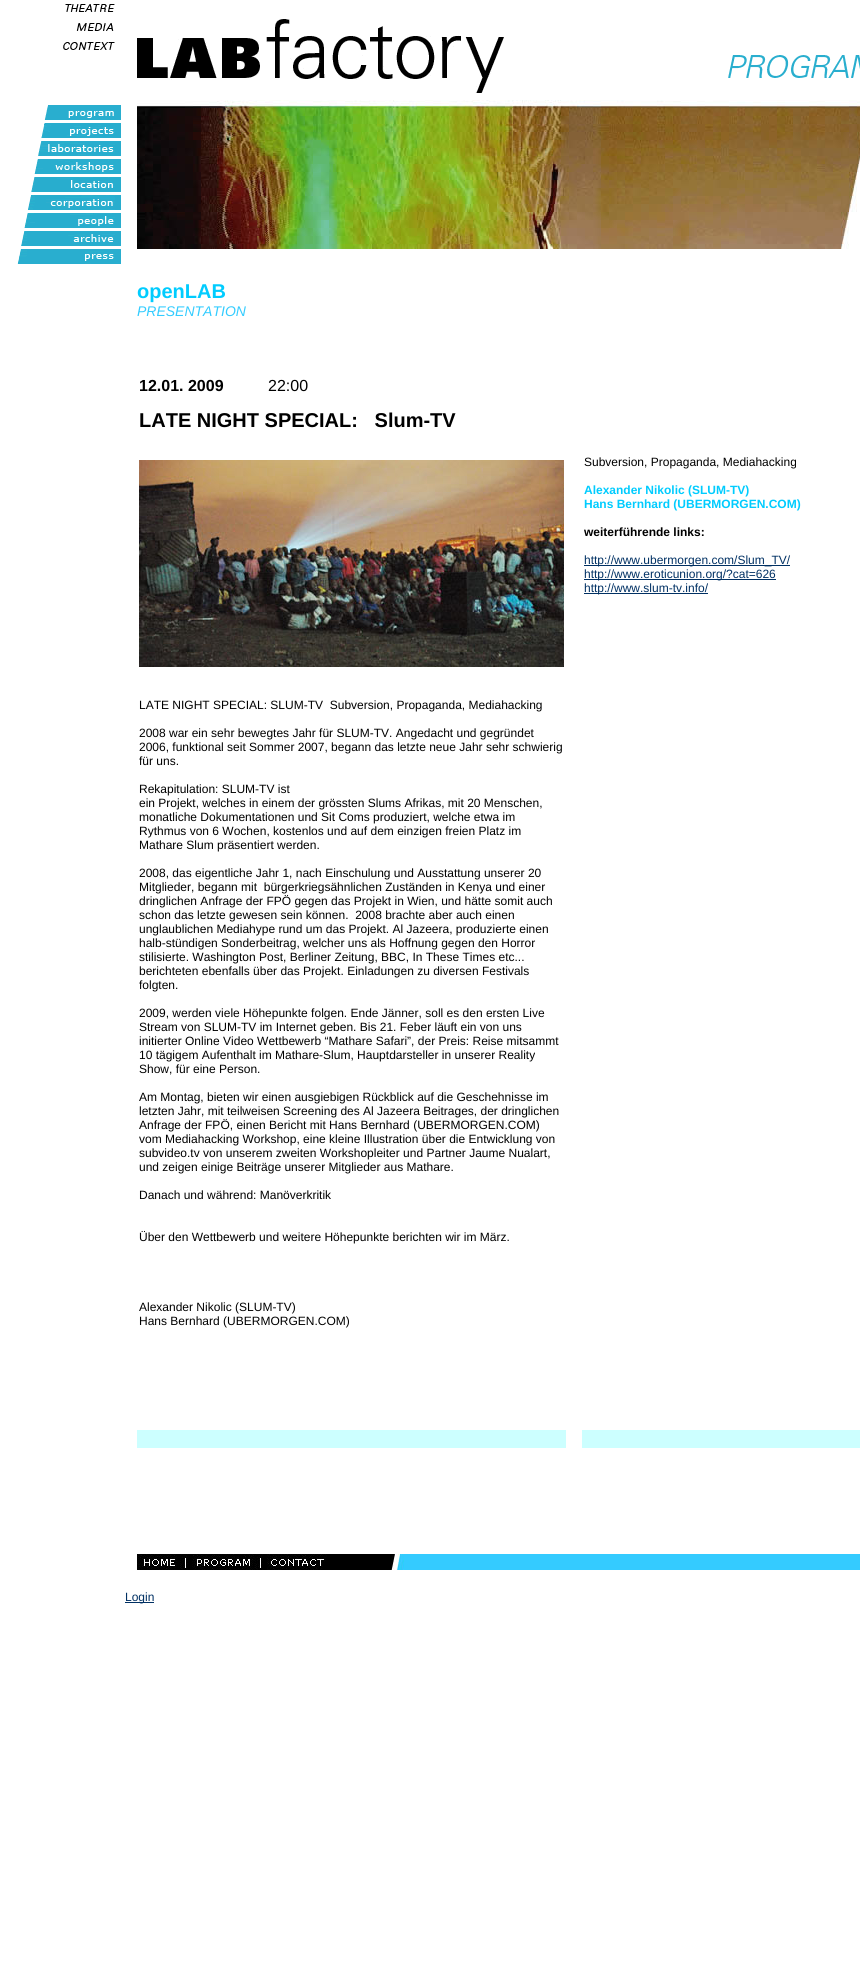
import math
import cairocffi as cairo

surface = cairo.ImageSurface(cairo.FORMAT_RGB24, 860, 1968)
ctx = cairo.Context(surface)
options = cairo.FontOptions()
options.set_hint_metrics(cairo.HINT_METRICS_OFF)
options.set_hint_style(cairo.HINT_STYLE_NONE)
ctx.set_font_options(options)
ctx.set_miter_limit(4)


def rgb(r, g, b):
    ctx.set_source_rgb(r / 255, g / 255, b / 255)


def face(family, size, italic, bold):
    ctx.select_font_face(family, cairo.FONT_SLANT_ITALIC if italic else cairo.FONT_SLANT_NORMAL, cairo.FONT_WEIGHT_BOLD if bold else cairo.FONT_WEIGHT_NORMAL)
    ctx.set_font_size(size)


def label(x, y, s):
    ctx.move_to(x, y)
    ctx.show_text(s)


def rect(x, y, w, h):
    ctx.rectangle(x, y, w, h)
    ctx.fill()


def image(path, x, y, w, h):
    ctx.save()
    ctx.set_source_surface(cairo.ImageSurface.create_from_png(path), x, y)
    ctx.rectangle(x, y, w, h)
    ctx.fill()
    ctx.restore()


rgb(255, 255, 255)
ctx.paint()
image('image0.png', 65, 4, 50, 8)
image('image1.png', 76, 23, 38, 8)
image('image2.png', 63, 42, 52, 8)
image('image3.png', 44, 105, 77, 15)
image('image4.png', 41, 123, 80, 15)
image('image5.png', 38, 141, 83, 15)
image('image6.png', 34, 159, 87, 15)
image('image7.png', 31, 177, 90, 15)
image('image8.png', 28, 195, 93, 15)
image('image9.png', 24, 213, 97, 15)
image('image10.png', 21, 231, 100, 15)
image('image11.png', 17, 249, 104, 15)
image('image12.png', 137, 19, 723, 74)
image('image13.png', 137, 100, 723, 149)
face('Liberation Sans', 20, 0, 1)
rgb(0, 204, 255)
label(137, 298, 'openLAB')
face('Liberation Sans', 14, 1, 0)
rgb(51, 204, 255)
label(137, 316, 'PRESENTATION')
face('Liberation Sans', 16, 0, 1)
rgb(0, 0, 0)
label(139, 391, '12.01. 2009')
face('Liberation Sans', 16, 0, 0)
label(268, 391, '22:00')
face('Liberation Sans', 20, 0, 1)
label(139, 427, 'LATE NIGHT SPECIAL:   Slum-TV')
image('image14.png', 139, 460, 425, 207)
face('Liberation Sans', 12, 0, 0)
label(139, 709, 'LATE NIGHT SPECIAL: SLUM-TV  Subversion, Propaganda, Mediahacking')
label(139, 737, '2008 war ein sehr bewegtes Jahr für SLUM-TV. Angedacht und gegründet')
label(139, 751, '2006, funktional seit Sommer 2007, begann das letzte neue Jahr sehr schwierig')
label(139, 765, 'für uns.')
label(139, 793, 'Rekapitulation: SLUM-TV ist')
label(139, 807, 'ein Projekt, welches in einem der grössten Slums Afrikas, mit 20 Menschen,')
label(139, 821, 'monatliche Dokumentationen und Sit Coms produziert, welche etwa im')
label(139, 835, 'Rythmus von 6 Wochen, kostenlos und auf dem einzigen freien Platz im')
label(139, 849, 'Mathare Slum präsentiert werden.')
label(139, 877, '2008, das eigentliche Jahr 1, nach Einschulung und Ausstattung unserer 20')
label(139, 891, 'Mitglieder, begann mit  bürgerkriegsähnlichen Zuständen in Kenya und einer')
label(139, 905, 'dringlichen Anfrage der FPÖ gegen das Projekt in Wien, und hätte somit auch')
label(139, 919, 'schon das letzte gewesen sein können.  2008 brachte aber auch einen')
label(139, 933, 'unglaublichen Mediahype rund um das Projekt. Al Jazeera, produzierte einen')
label(139, 947, 'halb-stündigen Sonderbeitrag, welcher uns als Hoffnung gegen den Horror')
label(139, 961, 'stilisierte. Washington Post, Berliner Zeitung, BBC, In These Times etc...')
label(139, 975, 'berichteten ebenfalls über das Projekt. Einladungen zu diversen Festivals')
label(139, 989, 'folgten.')
label(139, 1017, '2009, werden viele Höhepunkte folgen. Ende Jänner, soll es den ersten Live')
label(139, 1031, 'Stream von SLUM-TV im Internet geben. Bis 21. Feber läuft ein von uns')
label(139, 1045, 'initierter Online Video Wettbewerb “Mathare Safari”, der Preis: Reise mitsammt')
label(139, 1059, '10 tägigem Aufenthalt im Mathare-Slum, Hauptdarsteller in unserer Reality')
label(139, 1073, 'Show, für eine Person.')
label(139, 1101, 'Am Montag, bieten wir einen ausgiebigen Rückblick auf die Geschehnisse im')
label(139, 1115, 'letzten Jahr, mit teilweisen Screening des Al Jazeera Beitrages, der dringlichen')
label(139, 1129, 'Anfrage der FPÖ, einen Bericht mit Hans Bernhard (UBERMORGEN.COM)')
label(139, 1143, 'vom Mediahacking Workshop, eine kleine Illustration über die Entwicklung von')
label(139, 1157, 'subvideo.tv von unserem zweiten Workshopleiter und Partner Jaume Nualart,')
label(139, 1171, 'und zeigen einige Beiträge unserer Mitglieder aus Mathare.')
label(139, 1199, 'Danach und während: Manöverkritik')
label(139, 1241, 'Über den Wettbewerb und weitere Höhepunkte berichten wir im März.')
label(139, 1311, 'Alexander Nikolic (SLUM-TV)')
label(139, 1325, 'Hans Bernhard (UBERMORGEN.COM)')
label(584, 466, 'Subversion, Propaganda, Mediahacking')
face('Liberation Sans', 12, 0, 1)
rgb(0, 204, 255)
label(584, 494, 'Alexander Nikolic (SLUM-TV)')
label(584, 508, 'Hans Bernhard (UBERMORGEN.COM)')
rgb(0, 0, 0)
label(584, 536, 'weiterführende links:')
rgb(0, 48, 99)
rect(584, 565, 206, 1)
face('Liberation Sans', 12, 0, 0)
label(584, 564, 'http://www.ubermorgen.com/Slum_TV/')
rect(584, 579, 192, 1)
label(584, 578, 'http://www.eroticunion.org/?cat=626')
rect(584, 593, 124, 1)
label(584, 592, 'http://www.slum-tv.info/')
rgb(204, 255, 255)
rect(137, 1430, 429, 18)
rect(582, 1430, 278, 18)
image('image15.png', 137, 1554, 43, 16)
image('image16.png', 180, 1554, 12, 16)
image('image17.png', 192, 1554, 63, 16)
image('image16.png', 255, 1554, 12, 16)
image('image18.png', 267, 1554, 60, 16)
image('image19.png', 327, 1554, 68, 16)
image('image20.png', 396, 1554, 88, 16)
rgb(52, 203, 255)
rect(484, 1554, 376, 16)
rgb(0, 48, 99)
rect(125, 1602, 29, 1)
label(125, 1601, 'Login')
surface.write_to_png('render.png')
